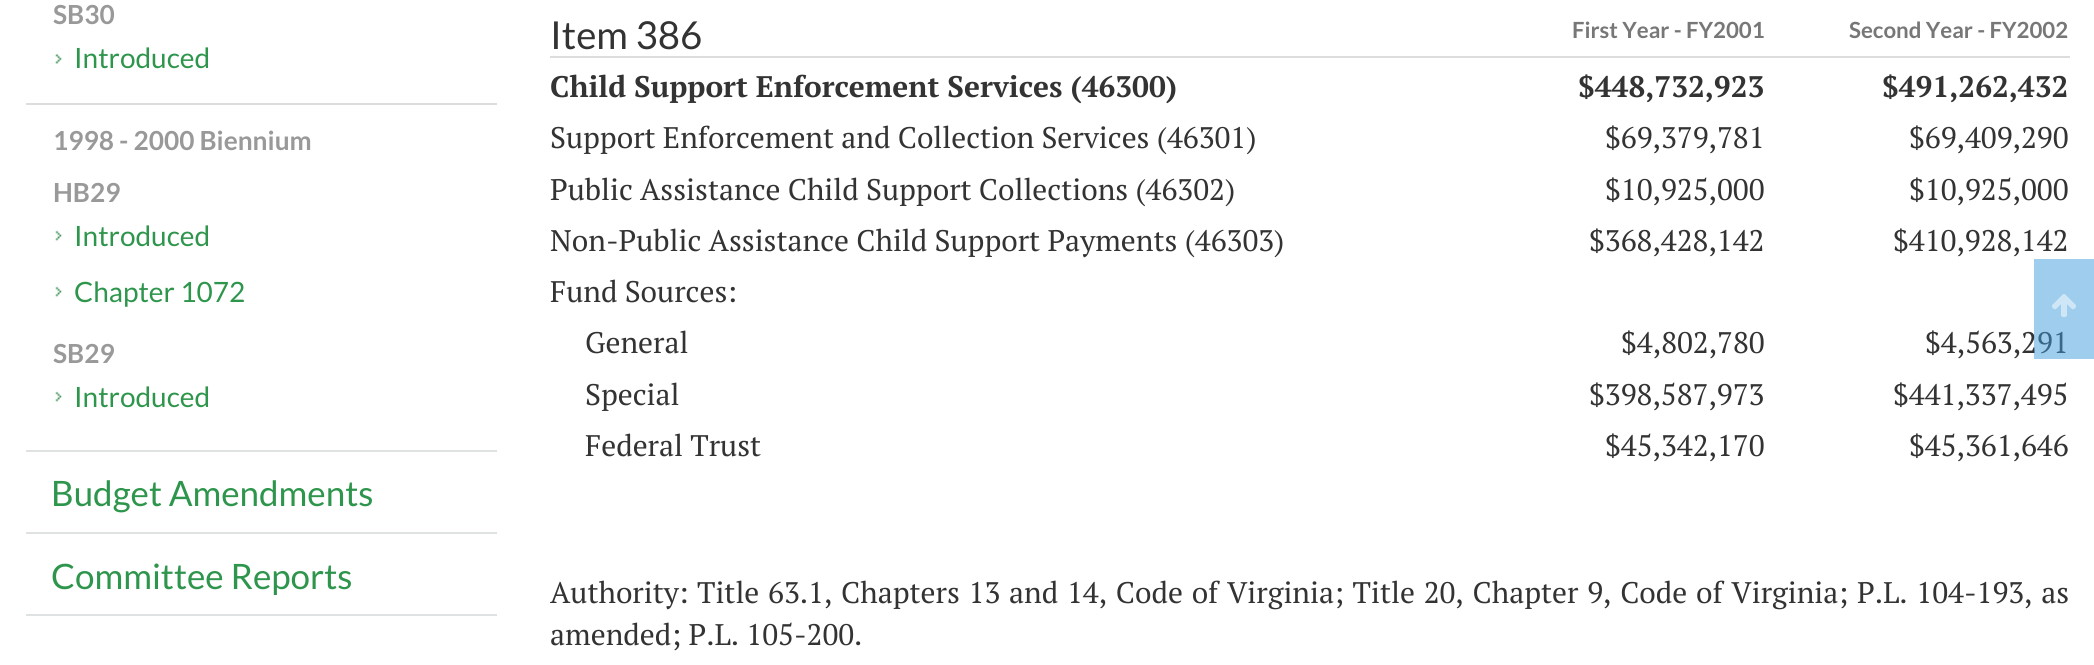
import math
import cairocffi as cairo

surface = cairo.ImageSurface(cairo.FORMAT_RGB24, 2094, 665)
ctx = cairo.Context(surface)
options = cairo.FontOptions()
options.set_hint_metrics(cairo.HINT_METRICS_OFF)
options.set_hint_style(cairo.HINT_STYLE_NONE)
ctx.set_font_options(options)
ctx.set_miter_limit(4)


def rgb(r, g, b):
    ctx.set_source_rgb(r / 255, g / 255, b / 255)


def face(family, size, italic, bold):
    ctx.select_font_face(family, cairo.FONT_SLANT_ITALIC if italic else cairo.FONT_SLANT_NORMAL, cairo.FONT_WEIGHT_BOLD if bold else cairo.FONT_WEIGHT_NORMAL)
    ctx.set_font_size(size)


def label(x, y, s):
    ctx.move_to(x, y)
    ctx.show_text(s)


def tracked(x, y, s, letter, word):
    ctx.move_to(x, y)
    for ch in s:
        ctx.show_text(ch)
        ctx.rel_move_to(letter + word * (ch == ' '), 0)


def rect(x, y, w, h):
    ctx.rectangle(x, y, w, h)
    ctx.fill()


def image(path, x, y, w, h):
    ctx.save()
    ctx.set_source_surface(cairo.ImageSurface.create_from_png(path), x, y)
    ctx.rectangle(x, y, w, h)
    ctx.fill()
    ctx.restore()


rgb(255, 255, 255)
ctx.paint()
rgb(222, 226, 227)
rect(26, 450, 471, 2)
face('Lato', 26.25, 0, 1)
rgb(153, 153, 153)
label(53, 24, 'SB30')
image('image0.png', 55, 54, 7, 10)
face('Lato', 28, 0, 0)
rgb(46, 149, 76)
label(74, 68, 'Introduced')
rgb(221, 221, 221)
rect(26, 103, 471, 2)
face('Lato', 26.25, 0, 1)
rgb(153, 153, 153)
label(53, 150, '1998 - 2000 Biennium')
label(53, 202, 'HB29')
image('image1.png', 55, 230, 7, 11)
face('Lato', 28, 0, 0)
rgb(46, 149, 76)
label(74, 246, 'Introduced')
image('image1.png', 55, 286, 7, 11)
label(74, 302, 'Chapter 1072')
face('Lato', 26.25, 0, 1)
rgb(153, 153, 153)
label(53, 363, 'SB29')
image('image1.png', 55, 391, 7, 11)
face('Lato', 28, 0, 0)
rgb(46, 149, 76)
label(74, 407, 'Introduced')
rgb(222, 226, 227)
rect(26, 532, 471, 2)
face('Lato', 35, 0, 0)
rgb(46, 149, 76)
label(51, 506, 'Budget Amendments')
rgb(222, 226, 227)
rect(26, 614, 471, 2)
rgb(46, 149, 76)
label(51, 589, 'Committee Reports')
face('Lato', 38.5, 0, 0)
rgb(51, 51, 51)
label(550, 49, 'Item 386')
face('Lato', 22.25, 0, 1)
rgb(119, 119, 119)
label(1572, 38, 'First Year - FY2001')
rgb(221, 221, 221)
rect(550, 56, 1520, 2)
rgb(119, 119, 119)
label(1849, 38, 'Second Year - FY2002')
face('PT Serif', 29.75, 0, 1)
rgb(51, 51, 51)
label(550, 97, 'Child Support Enforcement Services (46300)')
label(1578, 97, '$448,732,923')
label(1882, 97, '$491,262,432')
face('PT Serif', 29.75, 0, 0)
label(550, 148, 'Support Enforcement and Collection Services (46301)')
label(1605, 148, '$69,379,781')
label(1909, 148, '$69,409,290')
label(550, 200, 'Public Assistance Child Support Collections (46302)')
label(1605, 200, '$10,925,000')
label(1909, 200, '$10,925,000')
label(550, 251, 'Non-Public Assistance Child Support Payments (46303)')
label(1589, 251, '$368,428,142')
label(1893, 251, '$410,928,142')
label(550, 302, 'Fund Sources:')
label(585, 353, 'General')
label(1621, 353, '$4,802,780')
label(1925, 353, '$4,563,291')
label(585, 405, 'Special')
label(1589, 405, '$398,587,973')
label(1893, 405, '$441,337,495')
label(585, 456, 'Federal Trust')
label(1605, 456, '$45,342,170')
label(1909, 456, '$45,361,646')
label(550, 603, 'Authority:')
tracked(697, 603, 'Title 63.1, Chapters 13 and 14, Code of Virginia; Title 20, Chapter 9, Code of Virginia; P.L. 104-193, as', 0, 1.5)
label(550, 645, 'amended; P.L. 105-200.')
ctx.set_source_rgba(0.243, 0.616, 0.867, 0.5)
rect(2034, 259, 60, 100)
image('image2.png', 2051, 294, 26, 23)
surface.write_to_png('render.png')
